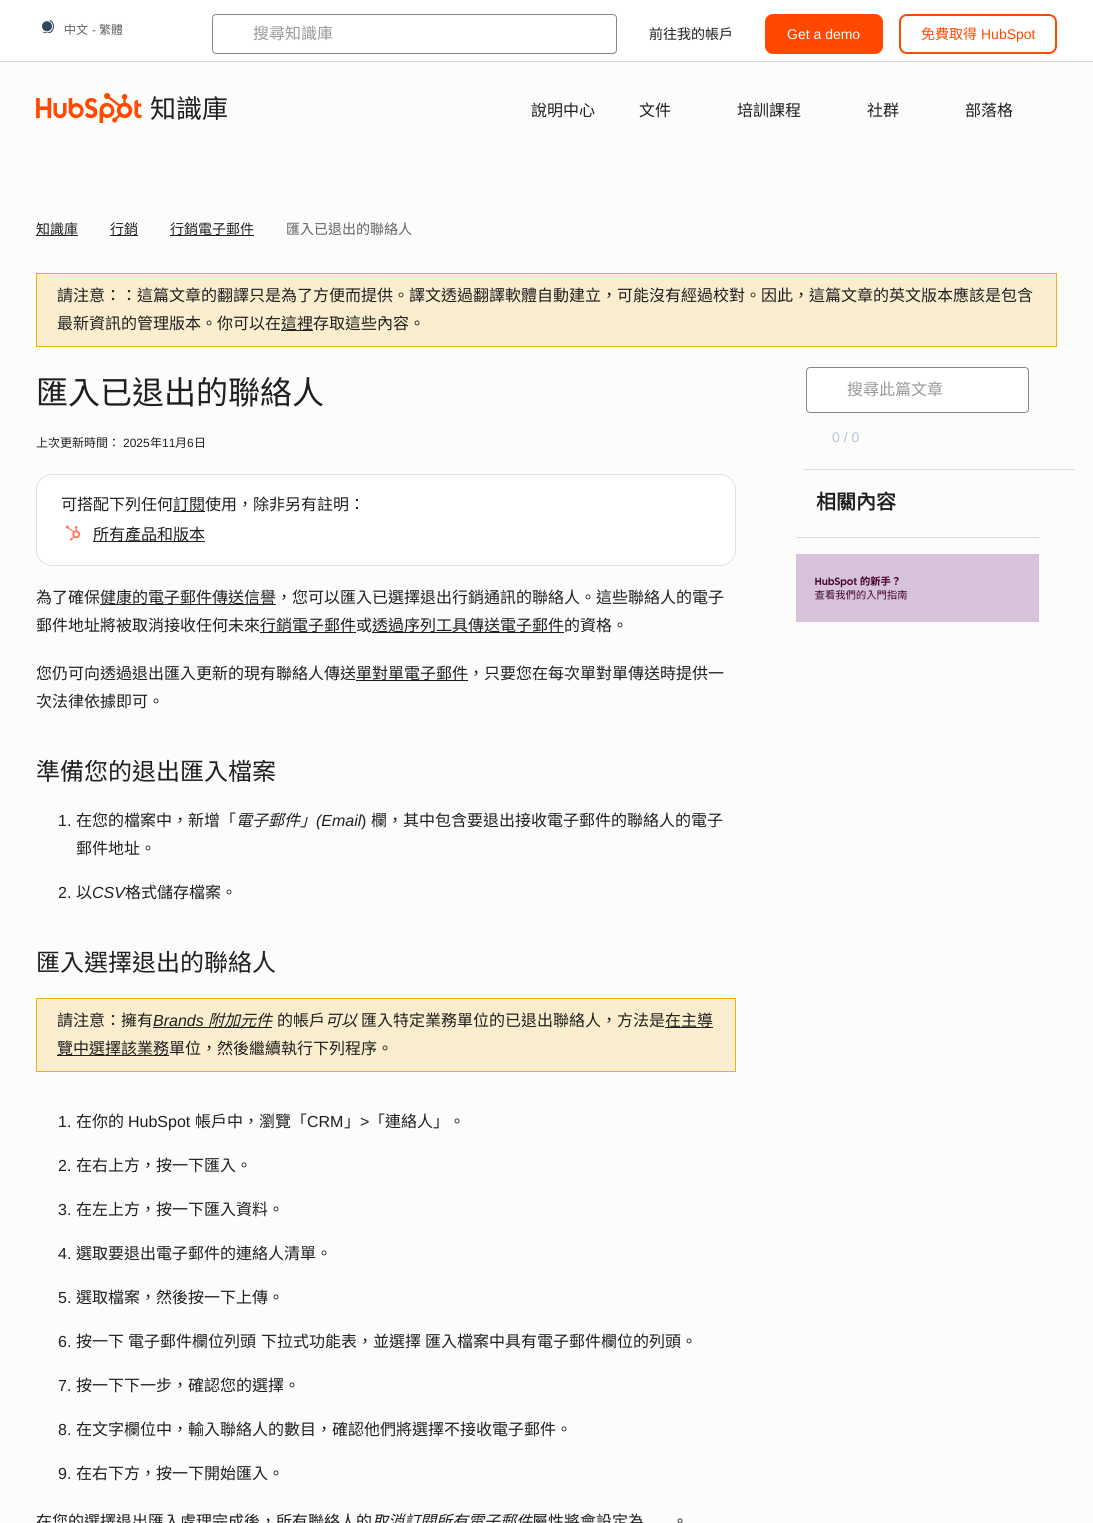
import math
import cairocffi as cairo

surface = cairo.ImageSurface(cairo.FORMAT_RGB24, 1093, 1523)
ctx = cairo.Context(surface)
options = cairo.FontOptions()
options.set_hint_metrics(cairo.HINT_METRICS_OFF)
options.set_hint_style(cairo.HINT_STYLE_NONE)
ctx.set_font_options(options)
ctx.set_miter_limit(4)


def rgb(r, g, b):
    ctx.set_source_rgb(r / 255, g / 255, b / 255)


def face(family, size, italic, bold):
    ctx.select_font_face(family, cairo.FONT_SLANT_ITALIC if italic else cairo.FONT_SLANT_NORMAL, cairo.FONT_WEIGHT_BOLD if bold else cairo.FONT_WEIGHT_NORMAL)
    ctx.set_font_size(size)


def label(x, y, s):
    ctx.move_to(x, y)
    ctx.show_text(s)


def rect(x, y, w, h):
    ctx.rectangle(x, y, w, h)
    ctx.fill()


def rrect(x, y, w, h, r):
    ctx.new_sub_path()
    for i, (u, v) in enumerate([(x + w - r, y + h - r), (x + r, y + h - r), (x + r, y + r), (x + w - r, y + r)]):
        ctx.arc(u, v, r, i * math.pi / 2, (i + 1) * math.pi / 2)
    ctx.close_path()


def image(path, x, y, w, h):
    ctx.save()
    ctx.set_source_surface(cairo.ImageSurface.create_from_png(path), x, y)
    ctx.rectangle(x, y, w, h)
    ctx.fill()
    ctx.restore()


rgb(252, 252, 250)
ctx.paint()
rgb(255, 255, 255)
rect(0, 0, 1093, 61)
rgb(203, 214, 226)
rect(0, 61, 1093, 1)
image('image0.png', 42, 20, 12, 13)
face('Noto Sans CJK TC', 12, 0, 0)
rgb(97, 97, 97)
label(64, 34, '中文')
face('Liberation Sans', 12, 0, 0)
label(92, 34, '-')
face('Noto Sans CJK TC', 12, 0, 0)
label(99, 34, '繁體')
rrect(212.5, 14.5, 404, 39, 3.5)
rgb(135, 135, 135)
ctx.set_line_width(1)
ctx.stroke()
face('Noto Sans CJK TC', 16, 0, 0)
rgb(153, 153, 153)
label(253, 39, '搜尋知識庫')
face('Noto Sans CJK TC', 14, 0, 0)
rgb(31, 31, 31)
label(649, 39, '前往我的帳戶')
rgb(255, 72, 0)
rrect(765, 14, 118, 40, 8)
ctx.fill()
face('Liberation Sans', 14, 0, 0)
rgb(255, 255, 255)
label(787, 39, 'Get a demo')
rrect(900, 15, 156, 38, 7)
rgb(255, 72, 0)
ctx.set_line_width(2)
ctx.stroke()
face('Noto Sans CJK TC', 14, 0, 0)
label(921, 39, '免費取得')
face('Liberation Sans', 14, 0, 0)
label(981, 39, 'HubSpot')
image('image1.png', 36, 93, 106, 30)
face('Noto Sans CJK TC', 26, 0, 0)
rgb(31, 31, 31)
label(150, 118, '知識庫')
face('Noto Sans CJK TC', 16, 0, 0)
label(531, 116, '說明中心')
label(639, 116, '文件')
label(737, 116, '培訓課程')
label(867, 116, '社群')
label(965, 116, '部落格')
rect(36, 235, 42, 1)
face('Noto Sans CJK TC', 14, 0, 0)
label(36, 234, '知識庫')
rect(110, 235, 28, 1)
label(110, 234, '行銷')
rect(170, 235, 84, 1)
label(170, 234, '行銷電子郵件')
rgb(97, 97, 97)
label(286, 234, '匯入已退出的聯絡人')
rgb(251, 238, 206)
ctx.rectangle(36.5, 273.5, 1020, 73)
ctx.fill_preserve()
rgb(238, 177, 23)
ctx.set_line_width(1)
ctx.stroke()
face('Noto Sans CJK TC', 16, 0, 0)
rgb(31, 31, 31)
label(57, 301, '請注意：：這篇文章的翻譯只是為了方便而提供。譯文透過翻譯軟體自動建立，可能沒有經過校對。因此，這篇文章的英文版本應該是包含')
label(57, 329, '最新資訊的管理版本。你可以在')
rect(281, 330, 32, 1)
label(281, 329, '這裡存取這些內容。')
face('Noto Sans CJK TC', 32, 0, 0)
label(36, 404, '匯入已退出的聯絡人')
face('Noto Sans CJK TC', 12, 0, 0)
label(36, 447, '上次更新時間：')
face('Liberation Sans', 12, 0, 0)
label(123, 447, '2025')
face('Noto Sans CJK TC', 12, 0, 0)
label(150, 447, '年')
face('Liberation Sans', 12, 0, 0)
label(162, 447, '11')
face('Noto Sans CJK TC', 12, 0, 0)
label(175, 447, '月')
face('Liberation Sans', 12, 0, 0)
label(187, 447, '6')
face('Noto Sans CJK TC', 12, 0, 0)
label(194, 447, '日')
rgb(255, 255, 255)
rrect(36.5, 474.5, 699, 91, 15.5)
ctx.fill_preserve()
rgb(227, 227, 227)
ctx.stroke()
face('Noto Sans CJK TC', 16, 0, 0)
rgb(31, 31, 31)
label(61, 510, '可搭配下列任何')
rect(173, 511, 32, 1)
label(173, 510, '訂閱使用，除非另有註明：')
image('image2.png', 66, 525, 14, 16)
rect(93, 541, 112, 1)
label(93, 540, '所有產品和版本')
label(36, 603, '為了確保')
rect(100, 604, 176, 1)
label(100, 603, '健康的電子郵件傳送信譽，您可以匯入已選擇退出行銷通訊的聯絡人。這些聯絡人的電子')
label(36, 631, '郵件地址將被取消接收任何未來')
rect(260, 632, 96, 1)
label(260, 631, '行銷電子郵件或')
rect(372, 632, 192, 1)
label(372, 631, '透過序列工具傳送電子郵件的資格。')
label(36, 679, '您仍可向透過退出匯入更新的現有聯絡人傳送')
rect(356, 680, 112, 1)
label(356, 679, '單對單電子郵件，只要您在每次單對單傳送時提供一')
label(36, 707, '次法律依據即可。')
face('Noto Sans CJK TC', 24, 0, 0)
label(36, 780, '準備您的退出匯入檔案')
face('Liberation Sans', 16, 0, 0)
label(58, 826, '1.')
face('Noto Sans CJK TC', 16, 0, 0)
label(76, 826, '在您的檔案中，新增「')
face('Noto Sans CJK TC', 16, 1, 0)
label(236, 826, '電子郵件」')
face('Liberation Sans', 16, 1, 0)
label(316, 826, '(Email')
face('Liberation Sans', 16, 0, 0)
label(361, 826, ')')
face('Noto Sans CJK TC', 16, 0, 0)
label(371, 826, '欄，其中包含要退出接收電子郵件的聯絡人的電子')
label(76, 854, '郵件地址。')
face('Liberation Sans', 16, 0, 0)
label(58, 898, '2.')
face('Noto Sans CJK TC', 16, 0, 0)
label(76, 898, '以')
face('Liberation Sans', 16, 1, 0)
label(92, 898, 'CSV')
face('Noto Sans CJK TC', 16, 0, 0)
label(125, 898, '格式儲存檔案。')
face('Noto Sans CJK TC', 24, 0, 0)
label(36, 971, '匯入選擇退出的聯絡人')
rgb(251, 238, 206)
ctx.rectangle(36.5, 998.5, 699, 73)
ctx.fill_preserve()
rgb(238, 177, 23)
ctx.stroke()
face('Noto Sans CJK TC', 16, 0, 0)
rgb(31, 31, 31)
label(57, 1026, '請注意：擁有')
face('Liberation Sans', 16, 1, 0)
label(153, 1026, 'Brands')
rect(153, 1027, 119, 1)
face('Noto Sans CJK TC', 16, 1, 0)
label(208, 1026, '附加元件')
face('Noto Sans CJK TC', 16, 0, 0)
label(277, 1026, '的帳戶')
face('Noto Sans CJK TC', 16, 1, 0)
label(325, 1026, '可以')
face('Noto Sans CJK TC', 16, 0, 0)
label(361, 1026, '匯入特定業務單位的已退出聯絡人，方法是')
rect(665, 1027, 48, 1)
label(665, 1026, '在主導')
rect(57, 1055, 112, 1)
label(57, 1054, '覽中選擇該業務單位，然後繼續執行下列程序。')
face('Liberation Sans', 16, 0, 0)
label(58, 1127, '1.')
face('Noto Sans CJK TC', 16, 0, 0)
label(76, 1127, '在你的')
face('Liberation Sans', 16, 0, 0)
label(128, 1127, 'HubSpot')
face('Noto Sans CJK TC', 16, 0, 0)
label(195, 1127, '帳戶中，瀏覽「')
face('Liberation Sans', 16, 0, 0)
label(307, 1127, 'CRM')
face('Noto Sans CJK TC', 16, 0, 0)
label(344, 1127, '」')
face('Liberation Sans', 16, 0, 0)
label(360, 1127, '>')
face('Noto Sans CJK TC', 16, 0, 0)
label(369, 1127, '「連絡人」。')
face('Liberation Sans', 16, 0, 0)
label(58, 1171, '2.')
face('Noto Sans CJK TC', 16, 0, 0)
label(76, 1171, '在右上方，按一下匯入。')
face('Liberation Sans', 16, 0, 0)
label(58, 1215, '3.')
face('Noto Sans CJK TC', 16, 0, 0)
label(76, 1215, '在左上方，按一下匯入資料。')
face('Liberation Sans', 16, 0, 0)
label(58, 1259, '4.')
face('Noto Sans CJK TC', 16, 0, 0)
label(76, 1259, '選取要退出電子郵件的連絡人清單。')
face('Liberation Sans', 16, 0, 0)
label(58, 1303, '5.')
face('Noto Sans CJK TC', 16, 0, 0)
label(76, 1303, '選取檔案，然後按一下上傳。')
face('Liberation Sans', 16, 0, 0)
label(58, 1347, '6.')
face('Noto Sans CJK TC', 16, 0, 0)
label(76, 1347, '按一下')
label(128, 1347, '電子郵件欄位列頭')
label(261, 1347, '下拉式功能表，並選擇')
label(425, 1347, '匯入檔案中具有電子郵件欄位的列頭。')
face('Liberation Sans', 16, 0, 0)
label(58, 1391, '7.')
face('Noto Sans CJK TC', 16, 0, 0)
label(76, 1391, '按一下下一步，確認您的選擇。')
face('Liberation Sans', 16, 0, 0)
label(58, 1435, '8.')
face('Noto Sans CJK TC', 16, 0, 0)
label(76, 1435, '在文字欄位中，輸入聯絡人的數目，確認他們將選擇不接收電子郵件。')
face('Liberation Sans', 16, 0, 0)
label(58, 1479, '9.')
face('Noto Sans CJK TC', 16, 0, 0)
label(76, 1479, '在右下方，按一下開始匯入。')
label(36, 1527, '在您的選擇退出匯入處理完成後，所有聯絡人的')
face('Noto Sans CJK TC', 16, 1, 0)
label(372, 1527, '取消訂閱所有電子郵件')
face('Noto Sans CJK TC', 16, 0, 0)
label(532, 1527, '屬性將會設定為')
label(672, 1527, '。')
rgb(255, 255, 255)
rrect(806.5, 367.5, 222, 45, 3.5)
ctx.fill_preserve()
rgb(135, 135, 135)
ctx.stroke()
rgb(153, 153, 153)
label(847, 395, '搜尋此篇文章')
face('Liberation Sans', 14, 0, 0)
rgb(182, 199, 214)
label(832, 442, '0 / 0')
rgb(221, 221, 221)
rect(804, 469, 271, 1)
face('Noto Sans CJK TC', 20, 0, 1)
rgb(31, 31, 31)
label(816, 509, '相關內容')
rgb(221, 221, 221)
rect(796, 537, 243, 1)
image('image3.png', 796, 554, 243, 68)
surface.write_to_png('render.png')
